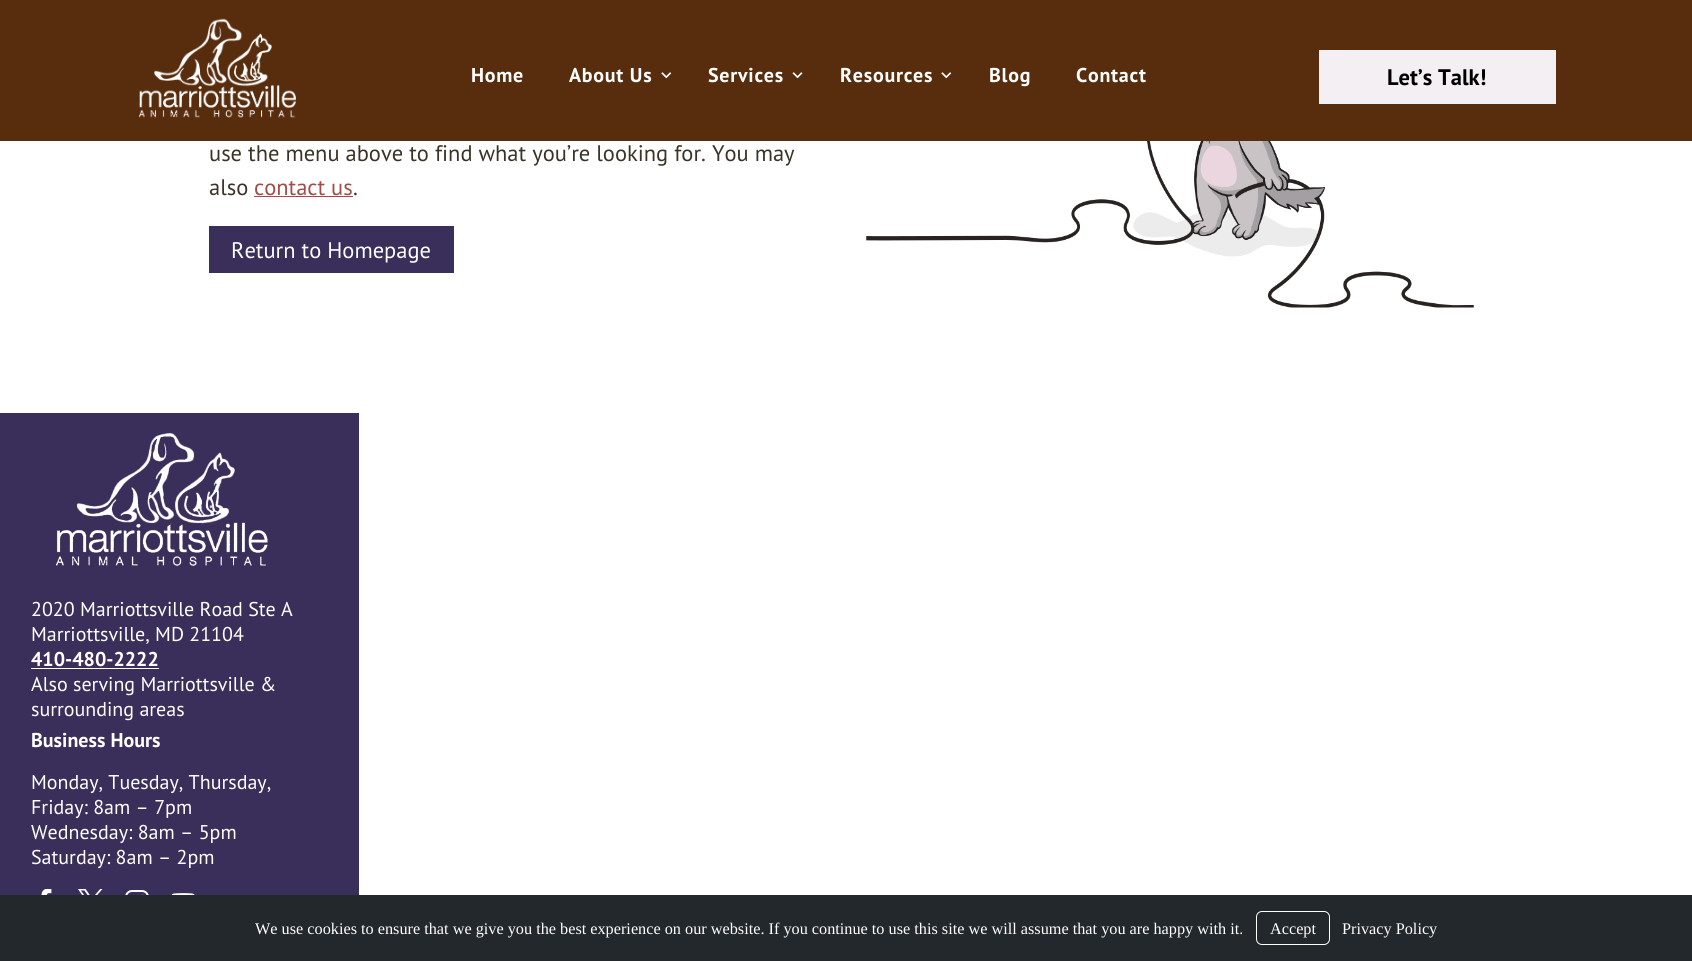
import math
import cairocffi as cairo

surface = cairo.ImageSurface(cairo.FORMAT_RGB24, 1692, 961)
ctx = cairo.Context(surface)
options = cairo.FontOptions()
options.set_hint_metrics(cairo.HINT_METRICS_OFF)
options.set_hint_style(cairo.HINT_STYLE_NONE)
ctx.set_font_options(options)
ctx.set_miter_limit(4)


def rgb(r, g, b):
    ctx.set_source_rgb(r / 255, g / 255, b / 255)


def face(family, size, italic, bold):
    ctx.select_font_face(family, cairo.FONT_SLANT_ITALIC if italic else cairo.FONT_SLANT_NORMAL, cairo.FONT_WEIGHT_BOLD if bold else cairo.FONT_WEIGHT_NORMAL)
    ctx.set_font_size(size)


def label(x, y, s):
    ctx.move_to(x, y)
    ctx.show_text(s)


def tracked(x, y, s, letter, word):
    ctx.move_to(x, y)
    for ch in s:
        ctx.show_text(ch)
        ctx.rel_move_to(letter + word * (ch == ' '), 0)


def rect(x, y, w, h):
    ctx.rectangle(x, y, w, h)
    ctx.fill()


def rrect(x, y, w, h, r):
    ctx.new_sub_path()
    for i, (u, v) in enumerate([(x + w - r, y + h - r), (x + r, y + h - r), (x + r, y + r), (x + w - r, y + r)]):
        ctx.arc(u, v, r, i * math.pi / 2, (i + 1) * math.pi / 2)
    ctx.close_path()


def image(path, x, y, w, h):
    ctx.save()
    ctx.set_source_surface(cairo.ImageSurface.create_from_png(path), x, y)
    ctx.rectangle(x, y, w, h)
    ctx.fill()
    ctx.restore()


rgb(255, 255, 255)
ctx.paint()
rgb(88, 45, 14)
rect(0, 0, 1692, 141)
image('image0.png', 139, 18, 157, 100)
face('PT Sans', 20, 0, 1)
rgb(255, 255, 255)
tracked(471, 82, 'Home', 0.75, 0)
tracked(569, 82, 'About Us', 0.75, 0)
image('image1.png', 661, 72, 11, 7)
tracked(708, 82, 'Services', 0.75, 0)
image('image2.png', 792, 72, 11, 7)
tracked(840, 82, 'Resources', 0.75, 0)
image('image1.png', 941, 72, 11, 7)
tracked(989, 82, 'Blog', 0.75, 0)
tracked(1076, 82, 'Contact', 0.75, 0)
rgb(243, 239, 242)
rect(1319, 50, 237, 54)
face('PT Sans', 22.5, 0, 1)
rgb(0, 0, 0)
label(1387, 85, 'Let’s Talk!')
face('PT Sans', 22.5, 0, 0)
rgb(59, 52, 38)
label(209, 161, 'use the menu above to find what you’re looking for. You may')
label(209, 195, 'also')
rgb(162, 75, 72)
label(254, 195, 'contact us')
rect(254, 196, 99, 1)
rgb(59, 52, 38)
label(353, 195, '.')
rgb(57, 47, 90)
rect(209, 226, 245, 47)
rgb(255, 255, 255)
label(231, 258, 'Return to Homepage')
image('image3.png', 866, 141, 608, 167)
rgb(57, 47, 90)
rect(0, 413, 359, 482)
image('image4.png', 56, 433, 212, 134)
face('PT Sans', 20, 0, 0)
rgb(255, 255, 255)
label(31, 616, '2020 Marriottsville Road Ste A')
label(31, 641, 'Marriottsville, MD 21104')
face('PT Sans', 20, 0, 1)
label(31, 666, '410-480-2222')
rect(31, 668, 128, 1)
face('PT Sans', 20, 0, 0)
label(31, 691, 'Also serving Marriottsville &')
label(31, 716, 'surrounding areas')
face('PT Sans', 20, 0, 1)
label(31, 747, 'Business Hours')
face('PT Sans', 20, 0, 0)
label(31, 789, 'Monday, Tuesday, Thursday,')
label(31, 814, 'Friday: 8am – 7pm')
label(31, 839, 'Wednesday: 8am – 5pm')
label(31, 864, 'Saturday: 8am – 2pm')
image('image5.png', 41, 889, 11, 6)
image('image6.png', 78, 889, 25, 6)
image('image7.png', 125, 890, 24, 5)
image('image8.png', 171, 893, 24, 2)
rgb(35, 40, 45)
rect(0, 895, 1692, 66)
face('Liberation Serif', 16.25, 0, 0)
rgb(255, 255, 255)
label(255, 934, 'We use cookies to ensure that we give you the best experience on our website. If you continue to use this site we will assume that you are happy with it.')
rrect(1256.5, 911.5, 73, 33, 5.5)
ctx.set_line_width(1)
ctx.stroke()
label(1270, 934, 'Accept')
label(1342, 934, 'Privacy Policy')
surface.write_to_png('render.png')
